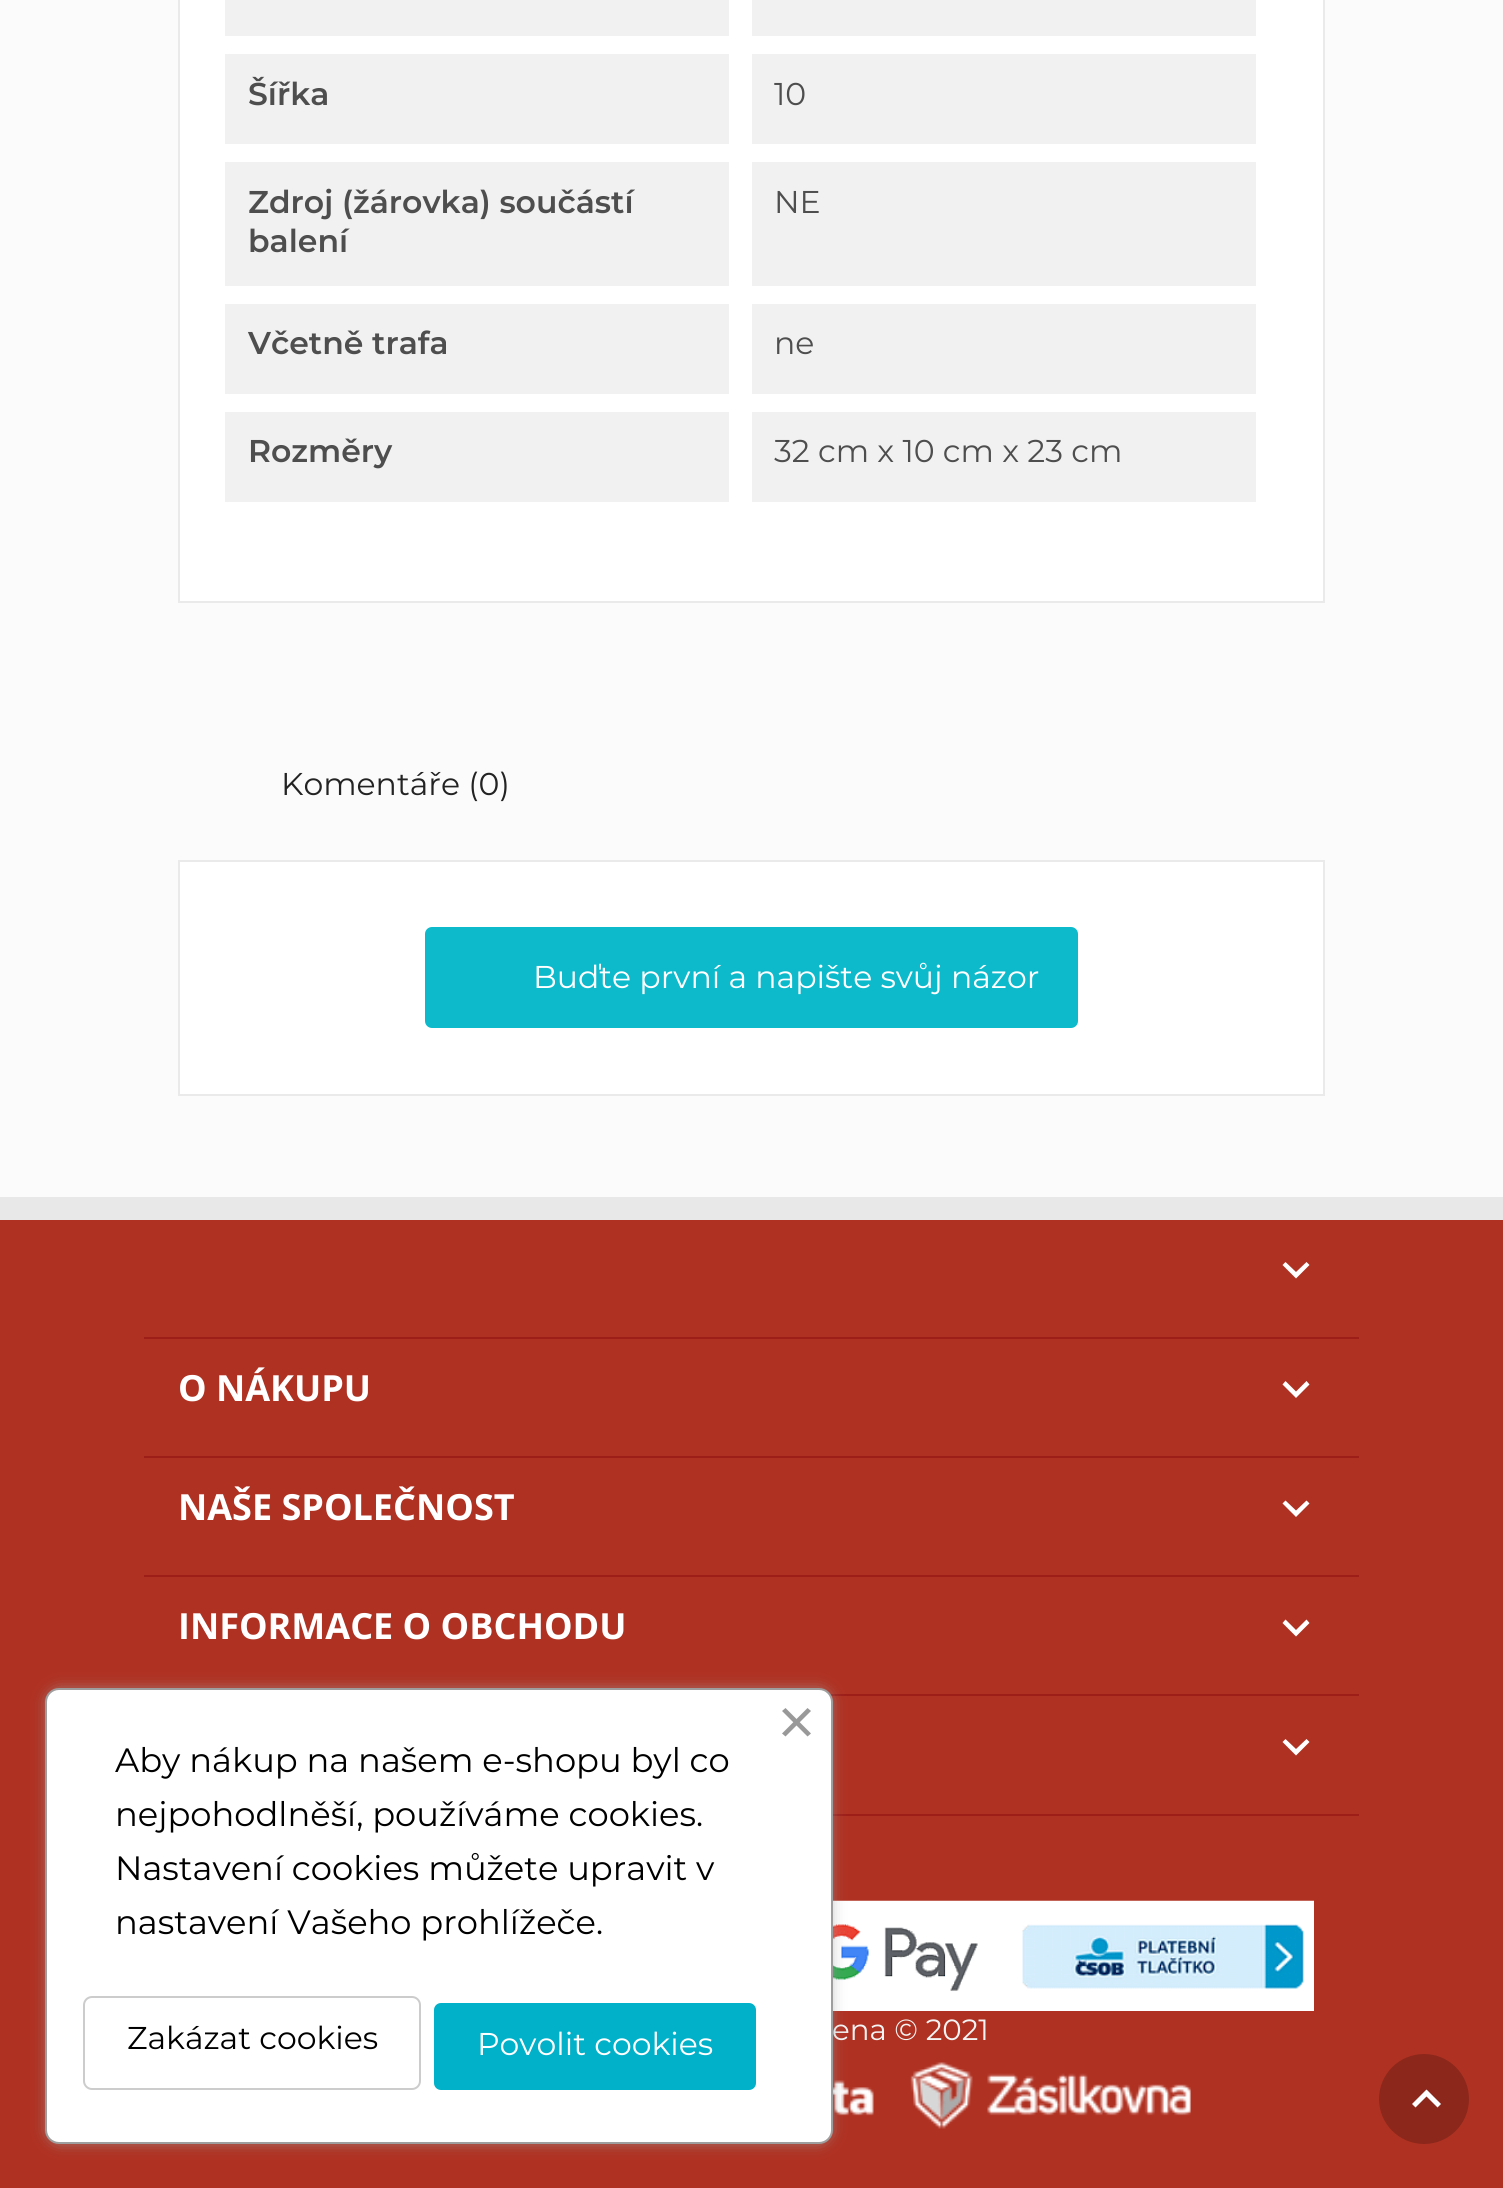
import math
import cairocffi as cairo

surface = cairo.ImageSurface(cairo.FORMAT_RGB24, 1503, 2188)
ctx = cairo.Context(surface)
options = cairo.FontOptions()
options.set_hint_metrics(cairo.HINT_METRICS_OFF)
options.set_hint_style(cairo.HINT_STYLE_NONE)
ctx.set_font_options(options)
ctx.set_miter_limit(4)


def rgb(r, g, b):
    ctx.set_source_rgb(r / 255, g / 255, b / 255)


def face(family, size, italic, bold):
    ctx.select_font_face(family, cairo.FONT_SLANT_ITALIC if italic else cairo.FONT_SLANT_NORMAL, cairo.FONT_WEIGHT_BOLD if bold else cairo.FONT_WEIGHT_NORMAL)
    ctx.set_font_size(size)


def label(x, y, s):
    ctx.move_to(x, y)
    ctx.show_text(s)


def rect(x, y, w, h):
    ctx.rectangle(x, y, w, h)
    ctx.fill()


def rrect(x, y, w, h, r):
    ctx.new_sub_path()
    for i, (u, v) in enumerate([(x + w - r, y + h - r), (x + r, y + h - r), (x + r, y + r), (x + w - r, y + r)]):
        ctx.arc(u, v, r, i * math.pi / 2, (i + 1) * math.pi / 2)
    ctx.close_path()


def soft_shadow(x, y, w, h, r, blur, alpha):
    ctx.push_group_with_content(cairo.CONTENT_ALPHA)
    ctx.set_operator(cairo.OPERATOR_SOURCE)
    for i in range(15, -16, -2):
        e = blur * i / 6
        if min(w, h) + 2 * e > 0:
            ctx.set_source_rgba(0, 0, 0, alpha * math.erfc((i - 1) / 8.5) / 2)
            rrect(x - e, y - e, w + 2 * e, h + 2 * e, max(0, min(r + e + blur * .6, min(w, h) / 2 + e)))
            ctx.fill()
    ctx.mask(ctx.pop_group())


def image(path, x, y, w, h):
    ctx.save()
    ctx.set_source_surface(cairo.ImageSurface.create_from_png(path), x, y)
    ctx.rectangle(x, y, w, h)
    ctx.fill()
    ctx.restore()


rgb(251, 251, 251)
ctx.paint()
rgb(255, 255, 255)
ctx.rectangle(179, -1, 1145, 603)
ctx.fill_preserve()
rgb(234, 234, 234)
ctx.stroke()
rgb(241, 241, 241)
rect(225, 0, 504, 36)
rect(752, 0, 504, 36)
rect(225, 54, 504, 90)
face('Montserrat SemiBold', 31.5, 0, 0)
rgb(79, 78, 78)
label(248, 105, 'Šířka')
rgb(241, 241, 241)
rect(752, 54, 504, 90)
face('Montserrat', 31.5, 0, 0)
rgb(79, 78, 78)
label(774, 105, '10')
rgb(241, 241, 241)
rect(225, 162, 504, 124)
face('Montserrat SemiBold', 31.5, 0, 0)
rgb(79, 78, 78)
label(248, 213, 'Zdroj (žárovka) součástí')
label(248, 252, 'balení')
rgb(241, 241, 241)
rect(752, 162, 504, 124)
face('Montserrat', 31.5, 0, 0)
rgb(79, 78, 78)
label(774, 213, 'NE')
rgb(241, 241, 241)
rect(225, 304, 504, 90)
face('Montserrat SemiBold', 31.5, 0, 0)
rgb(79, 78, 78)
label(248, 354, 'Včetně trafa')
rgb(241, 241, 241)
rect(752, 304, 504, 90)
face('Montserrat', 31.5, 0, 0)
rgb(79, 78, 78)
label(774, 354, 'ne')
rgb(241, 241, 241)
rect(225, 412, 504, 90)
face('Montserrat SemiBold', 31.5, 0, 0)
rgb(79, 78, 78)
label(248, 462, 'Rozměry')
rgb(241, 241, 241)
rect(752, 412, 504, 90)
face('Montserrat', 31.5, 0, 0)
rgb(79, 78, 78)
label(774, 462, '32 cm x 10 cm x 23 cm')
rgb(35, 35, 35)
label(281, 795, 'Komentáře (0)')
rgb(255, 255, 255)
ctx.rectangle(179, 861, 1145, 234)
ctx.fill_preserve()
rgb(234, 234, 234)
ctx.stroke()
rgb(13, 186, 204)
rrect(425, 927, 653, 101, 7)
ctx.fill()
rgb(255, 255, 255)
label(533, 988, 'Buďte první a napište svůj názor')
rgb(232, 232, 232)
rect(0, 1197, 1503, 23)
rgb(175, 49, 34)
rect(0, 1220, 1503, 968)
rgb(157, 30, 25)
rect(144, 1337, 1215, 2)
rgb(255, 255, 255)
ctx.new_path()
ctx.move_to(1285.5, 1262)
ctx.line_to(1296, 1272)
ctx.line_to(1306.5, 1262)
ctx.line_to(1309.5, 1265)
ctx.line_to(1296, 1278.5)
ctx.line_to(1282.5, 1265)
ctx.close_path()
ctx.fill()
rgb(157, 30, 25)
rect(144, 1456, 1215, 2)
face('Open Sans', 36, 0, 1)
rgb(255, 255, 255)
label(178, 1401, 'O NÁKUPU')
ctx.new_path()
ctx.move_to(1285.5, 1381)
ctx.line_to(1296, 1391.5)
ctx.line_to(1306.5, 1381)
ctx.line_to(1309.5, 1384.5)
ctx.line_to(1296, 1398)
ctx.line_to(1282.5, 1384.5)
ctx.close_path()
ctx.fill()
rgb(157, 30, 25)
rect(144, 1575, 1215, 2)
rgb(255, 255, 255)
label(178, 1520, 'NAŠE SPOLEČNOST')
ctx.new_path()
ctx.move_to(1285.5, 1500.5)
ctx.line_to(1296, 1510.5)
ctx.line_to(1306.5, 1500.5)
ctx.line_to(1309.5, 1503.5)
ctx.line_to(1296, 1517)
ctx.line_to(1282.5, 1503.5)
ctx.close_path()
ctx.fill()
rgb(157, 30, 25)
rect(830, 1694, 529, 2)
rgb(255, 255, 255)
label(178, 1639, 'INFORMACE O OBCHODU')
ctx.new_path()
ctx.move_to(1285.5, 1619.5)
ctx.line_to(1296, 1630)
ctx.line_to(1306.5, 1619.5)
ctx.line_to(1309.5, 1623)
ctx.line_to(1296, 1636.5)
ctx.line_to(1282.5, 1623)
ctx.close_path()
ctx.fill()
rgb(157, 30, 25)
rect(833, 1814, 526, 2)
rgb(255, 255, 255)
ctx.new_path()
ctx.move_to(1285.5, 1739)
ctx.line_to(1296, 1749)
ctx.line_to(1306.5, 1739)
ctx.line_to(1309.5, 1742)
ctx.line_to(1296, 1755.5)
ctx.line_to(1282.5, 1742)
ctx.close_path()
ctx.fill()
image('image0.png', 833, 1900, 481, 111)
face('Montserrat', 29.25, 0, 0)
rgb(244, 244, 244)
label(832, 2040, 'ena © 2021')
image('image1.png', 833, 2062, 358, 67)
rgb(158, 158, 158)
soft_shadow(50, 1692, 778, 448, 9, 8, 1)
rgb(255, 255, 255)
rrect(46, 1689, 786, 454, 13)
ctx.fill_preserve()
rgb(158, 158, 158)
ctx.stroke()
rgb(153, 153, 153)
ctx.new_path()
ctx.move_to(782, 1733.5)
ctx.line_to(807.5, 1708)
ctx.line_to(811, 1711)
ctx.line_to(785.5, 1736.5)
ctx.close_path()
ctx.fill()
ctx.new_path()
ctx.move_to(785.5, 1708)
ctx.line_to(811, 1733.5)
ctx.line_to(807.5, 1736.5)
ctx.line_to(782, 1711)
ctx.close_path()
ctx.fill()
face('Montserrat', 33.75, 0, 0)
rgb(0, 0, 0)
label(115, 1772, 'Aby nákup na našem e-shopu byl co')
label(115, 1826, 'nejpohodlněší, používáme cookies.')
label(115, 1880, 'Nastavení cookies můžete upravit v')
label(115, 1934, 'nastavení Vašeho prohlížeče.')
rrect(84, 1997, 336, 92, 8)
rgb(204, 204, 204)
ctx.stroke()
face('Montserrat', 31.5, 0, 0)
rgb(0, 0, 0)
label(127, 2049, 'Zakázat cookies')
rgb(0, 177, 201)
rrect(435, 2004, 320, 85, 6)
ctx.fill_preserve()
ctx.stroke()
rgb(255, 255, 255)
label(477, 2055, 'Povolit cookies')
rgb(140, 39, 27)
ctx.new_path()
ctx.arc(1424, 2099, 45, 0, 2 * math.pi)
ctx.fill()
rgb(255, 255, 255)
ctx.new_path()
ctx.move_to(1426.5, 2089.5)
ctx.line_to(1441, 2104)
ctx.line_to(1437.5, 2107.5)
ctx.line_to(1426.5, 2096.5)
ctx.line_to(1415.5, 2107.5)
ctx.line_to(1412, 2104)
ctx.close_path()
ctx.fill()
surface.write_to_png('render.png')
